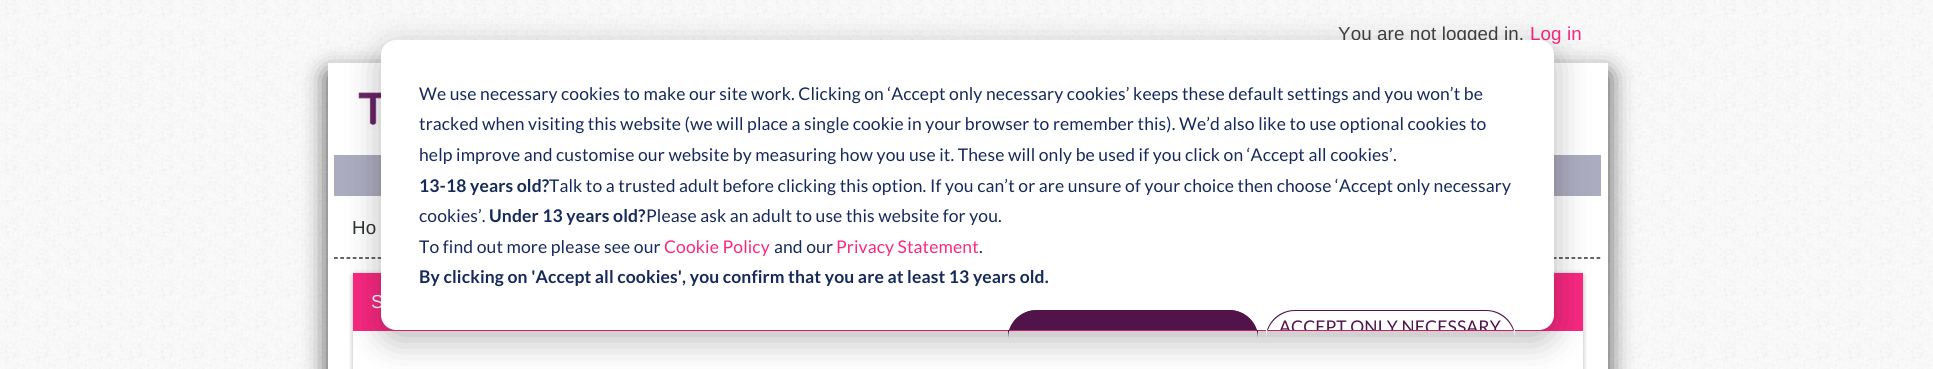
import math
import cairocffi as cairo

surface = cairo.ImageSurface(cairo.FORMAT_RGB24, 1933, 369)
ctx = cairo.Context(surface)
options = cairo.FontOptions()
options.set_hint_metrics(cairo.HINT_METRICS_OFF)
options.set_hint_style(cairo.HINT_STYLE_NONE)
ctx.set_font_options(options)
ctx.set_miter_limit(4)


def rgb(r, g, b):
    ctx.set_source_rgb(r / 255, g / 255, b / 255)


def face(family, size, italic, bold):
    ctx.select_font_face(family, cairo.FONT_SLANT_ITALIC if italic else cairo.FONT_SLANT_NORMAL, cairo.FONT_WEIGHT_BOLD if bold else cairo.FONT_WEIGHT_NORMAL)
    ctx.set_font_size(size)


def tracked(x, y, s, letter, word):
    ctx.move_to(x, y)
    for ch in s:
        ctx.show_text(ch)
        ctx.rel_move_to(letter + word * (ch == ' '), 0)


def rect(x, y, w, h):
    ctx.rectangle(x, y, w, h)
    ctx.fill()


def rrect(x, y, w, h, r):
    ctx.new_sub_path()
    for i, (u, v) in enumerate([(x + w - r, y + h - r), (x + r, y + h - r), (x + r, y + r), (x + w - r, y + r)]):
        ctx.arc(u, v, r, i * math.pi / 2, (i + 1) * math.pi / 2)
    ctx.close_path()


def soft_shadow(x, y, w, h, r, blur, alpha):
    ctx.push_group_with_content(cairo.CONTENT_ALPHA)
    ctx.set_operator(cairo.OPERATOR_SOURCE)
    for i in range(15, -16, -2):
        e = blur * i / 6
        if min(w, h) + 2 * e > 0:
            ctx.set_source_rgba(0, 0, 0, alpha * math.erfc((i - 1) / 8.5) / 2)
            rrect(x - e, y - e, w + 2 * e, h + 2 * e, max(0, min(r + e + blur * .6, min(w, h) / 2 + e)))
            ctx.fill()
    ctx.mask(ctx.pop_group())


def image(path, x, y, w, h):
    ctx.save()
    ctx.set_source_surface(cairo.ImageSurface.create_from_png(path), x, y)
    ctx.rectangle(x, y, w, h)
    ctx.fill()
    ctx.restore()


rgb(255, 255, 255)
ctx.paint()
image('image0.png', 0, 0, 1933, 369)
rgb(65, 64, 66)
soft_shadow(328, 74, 1280, 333, 0, 12.5, 1)
rgb(255, 255, 255)
rect(328, 63, 1280, 306)
face('Liberation Sans', 18.75, 0, 0)
rgb(65, 64, 66)
tracked(1338, 40, 'You are not logged in.', 0.12, 0)
rgb(248, 40, 129)
tracked(1530, 40, 'Log in', 0.12, 0)
image('image1.png', 358, 83, 23, 52)
rgb(172, 172, 192)
rect(334, 155, 1267, 41)
ctx.new_path()
ctx.move_to(334, 258)
ctx.line_to(1601, 258)
rgb(0, 0, 0)
ctx.set_line_width(1.2)
ctx.set_dash([3.75, 2.5])
ctx.stroke()
rgb(46, 51, 51)
tracked(352, 234, 'Ho', 0.12, 0)
rgb(0, 0, 0)
soft_shadow(353, 274, 1230, 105, 2.5, 2.5, 0.3)
rgb(255, 255, 255)
rect(353, 331, 1230, 38)
rgb(248, 40, 129)
rect(353, 273, 1230, 58)
rgb(255, 255, 255)
tracked(371, 308, 'S', 0.12, 0)
rgb(0, 0, 0)
soft_shadow(381, 50, 1173, 290, 15, 17.5, 0.28)
rgb(255, 255, 255)
rrect(381, 40, 1173, 290, 15)
ctx.fill()
face('Lato', 17.5, 0, 0)
rgb(21, 41, 90)
tracked(419, 100, 'We use necessary cookies to make our site work. Clicking on ‘Accept only necessary cookies’ keeps these default settings and you won’t be', 0.12, 0)
tracked(419, 130, 'tracked when visiting this website (we will place a single cookie in your browser to remember this). We’d also like to use optional cookies to', 0.12, 0)
tracked(419, 161, 'help improve and customise our website by measuring how you use it. These will only be used if you click on ‘Accept all cookies’.', 0.12, 0)
face('Lato', 17.5, 0, 1)
tracked(419, 192, '13-18 years old?', 0.12, 0)
face('Lato', 17.5, 0, 0)
tracked(549, 192, 'Talk to a trusted adult before clicking this option. If you can’t or are unsure of your choice then choose ‘Accept only necessary', 0.12, 0)
tracked(419, 222, 'cookies’.', 0.12, 0)
face('Lato', 17.5, 0, 1)
tracked(489, 222, 'Under 13 years old?', 0.12, 0)
face('Lato', 17.5, 0, 0)
tracked(646, 222, 'Please ask an adult to use this website for you.', 0.12, 0)
tracked(419, 253, 'To find out more please see our', 0.12, 0)
rgb(248, 40, 129)
tracked(664, 253, 'Cookie Policy', 0.12, 0)
rgb(21, 41, 90)
tracked(774, 253, 'and our', 0.12, 0)
rgb(248, 40, 129)
tracked(836, 253, 'Privacy Statement', 0.12, 0)
rgb(21, 41, 90)
tracked(979, 253, '.', 0.12, 0)
face('Lato', 17.5, 0, 1)
tracked(419, 283, 'By clicking on \'Accept all cookies\', you confirm that you are at least 13 years old.', 0.12, 0)
rgb(80, 20, 75)
ctx.new_path()
ctx.move_to(1037, 310)
ctx.line_to(1229, 310)
ctx.curve_to(1245, 310, 1258, 323, 1258, 339)
ctx.line_to(1258, 330)
ctx.line_to(1008, 330)
ctx.line_to(1008, 339)
ctx.curve_to(1008, 323, 1021, 310, 1037, 310)
ctx.close_path()
ctx.fill()
ctx.new_path()
ctx.move_to(1037, 310)
ctx.curve_to(1024, 310, 1013, 318, 1009, 330)
ctx.line_to(1010, 330)
ctx.curve_to(1014, 319, 1025, 311, 1037, 311)
ctx.line_to(1229, 311)
ctx.curve_to(1241, 311, 1252, 319, 1256, 330)
ctx.line_to(1257, 330)
ctx.curve_to(1253, 318, 1242, 310, 1229, 310)
ctx.close_path()
ctx.fill()
rgb(255, 255, 255)
ctx.new_path()
ctx.move_to(1295, 310)
ctx.line_to(1486, 310)
ctx.curve_to(1502, 310, 1515, 323, 1515, 339)
ctx.line_to(1515, 330)
ctx.line_to(1266, 330)
ctx.line_to(1266, 339)
ctx.curve_to(1266, 323, 1279, 310, 1295, 310)
ctx.close_path()
ctx.fill()
rgb(80, 20, 75)
ctx.new_path()
ctx.move_to(1295, 310)
ctx.curve_to(1282, 310, 1271, 318, 1267, 330)
ctx.line_to(1268, 330)
ctx.curve_to(1272, 319, 1283, 311, 1295, 311)
ctx.line_to(1486, 311)
ctx.curve_to(1498, 311, 1509, 319, 1513, 330)
ctx.line_to(1514, 330)
ctx.curve_to(1510, 318, 1499, 310, 1486, 310)
ctx.close_path()
ctx.fill()
ctx.save()
rrect(381, 40, 1173, 290, 15)
ctx.clip()
face('Lato', 17.5, 0, 0)
tracked(1279, 333, 'ACCEPT ONLY NECESSARY', 0.12, 0)
ctx.restore()
surface.write_to_png('render.png')
